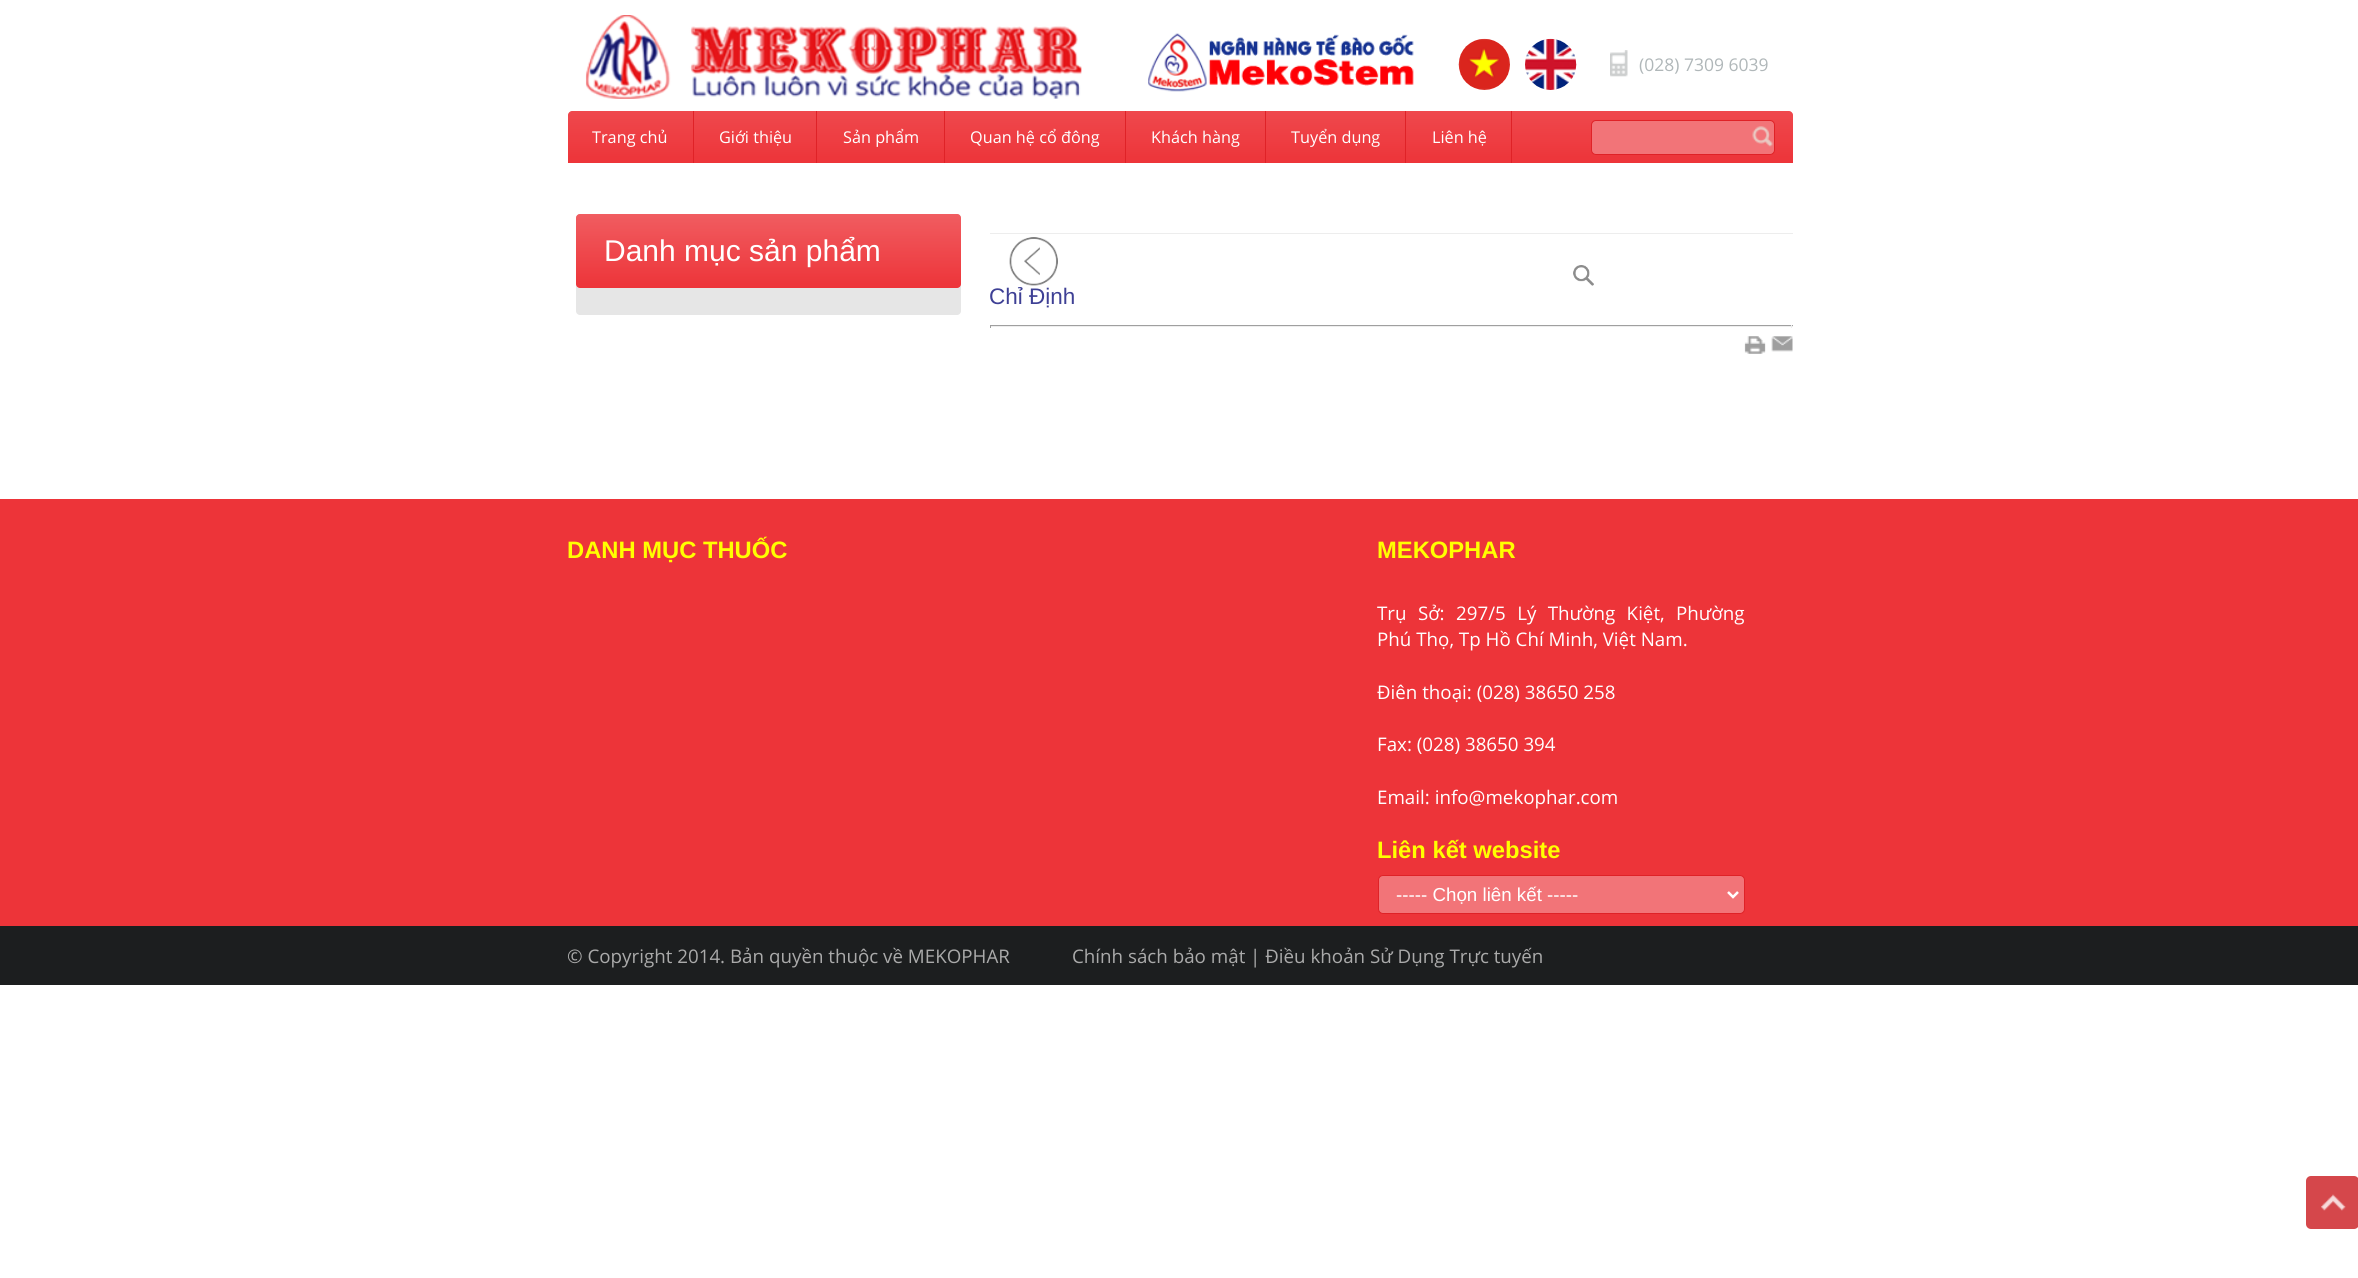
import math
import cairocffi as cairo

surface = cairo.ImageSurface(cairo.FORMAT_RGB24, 2358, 1278)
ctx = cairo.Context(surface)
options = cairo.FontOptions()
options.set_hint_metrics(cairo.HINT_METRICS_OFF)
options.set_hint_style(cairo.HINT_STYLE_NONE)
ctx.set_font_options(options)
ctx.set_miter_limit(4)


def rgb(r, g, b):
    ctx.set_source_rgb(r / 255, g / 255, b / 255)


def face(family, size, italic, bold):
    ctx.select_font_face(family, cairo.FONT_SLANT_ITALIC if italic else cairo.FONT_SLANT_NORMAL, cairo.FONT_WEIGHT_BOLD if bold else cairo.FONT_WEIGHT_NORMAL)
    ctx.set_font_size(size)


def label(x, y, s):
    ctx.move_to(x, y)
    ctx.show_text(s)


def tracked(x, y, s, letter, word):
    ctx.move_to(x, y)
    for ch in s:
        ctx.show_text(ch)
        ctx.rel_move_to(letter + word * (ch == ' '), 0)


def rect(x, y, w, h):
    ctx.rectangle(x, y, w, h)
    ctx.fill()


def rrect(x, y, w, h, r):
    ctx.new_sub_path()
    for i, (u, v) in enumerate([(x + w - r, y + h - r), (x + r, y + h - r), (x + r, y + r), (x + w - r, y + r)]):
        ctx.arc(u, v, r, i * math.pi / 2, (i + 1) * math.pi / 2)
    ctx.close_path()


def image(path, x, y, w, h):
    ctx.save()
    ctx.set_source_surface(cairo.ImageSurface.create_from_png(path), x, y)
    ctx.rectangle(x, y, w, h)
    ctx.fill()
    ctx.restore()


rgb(255, 255, 255)
ctx.paint()
image('image0.png', 585, 15, 497, 84)
image('image1.png', 1148, 33, 266, 59)
image('image2.png', 1458, 38, 52, 52)
image('image3.png', 1525, 38, 52, 52)
image('image4.png', 1610, 50, 18, 27)
face('Open Sans', 17.5, 0, 0)
rgb(176, 183, 185)
label(1639, 71, '(028) 7309 6039')
rgb(237, 52, 57)
ctx.new_path()
ctx.move_to(572, 111)
ctx.line_to(1789, 111)
ctx.curve_to(1791, 111, 1793, 113, 1793, 115)
ctx.line_to(1793, 163)
ctx.line_to(568, 163)
ctx.line_to(568, 115)
ctx.curve_to(568, 113, 570, 111, 572, 111)
ctx.close_path()
ctx.fill()
gradient = cairo.LinearGradient(1180, 111, 1180, 163)
gradient.add_color_stop_rgba(0, 1, 1, 1, 0.1)
gradient.add_color_stop_rgba(1, 1, 1, 1, 0)
ctx.set_source(gradient)
ctx.new_path()
ctx.move_to(572, 111)
ctx.line_to(1789, 111)
ctx.curve_to(1791, 111, 1793, 113, 1793, 115)
ctx.line_to(1793, 163)
ctx.line_to(568, 163)
ctx.line_to(568, 115)
ctx.curve_to(568, 113, 570, 111, 572, 111)
ctx.close_path()
ctx.fill()
rgb(223, 34, 39)
rect(693, 111, 1, 52)
face('Open Sans', 16.25, 0, 0)
rgb(255, 255, 255)
label(592, 143, 'Trang chủ')
rgb(223, 34, 39)
rect(816, 111, 1, 52)
rgb(255, 255, 255)
label(719, 143, 'Giới thiệu')
rgb(223, 34, 39)
rect(944, 111, 1, 52)
rgb(255, 255, 255)
label(843, 143, 'Sản phẩm')
rgb(223, 34, 39)
rect(1125, 111, 1, 52)
rgb(255, 255, 255)
label(970, 143, 'Quan hệ cổ đông')
rgb(223, 34, 39)
rect(1265, 111, 1, 52)
rgb(255, 255, 255)
label(1151, 143, 'Khách hàng')
rgb(223, 34, 39)
rect(1405, 111, 1, 52)
rgb(255, 255, 255)
label(1291, 143, 'Tuyển dụng')
rgb(223, 34, 39)
rect(1511, 111, 1, 52)
rgb(255, 255, 255)
label(1432, 143, 'Liên hệ')
rgb(242, 116, 120)
rrect(1591.5, 120.5, 183, 34, 4.5)
ctx.fill_preserve()
rgb(223, 34, 39)
ctx.set_line_width(1)
ctx.stroke()
image('image5.png', 1752, 126, 21, 21)
rgb(230, 230, 230)
rrect(576, 214, 385, 101, 4)
ctx.fill()
rgb(237, 52, 57)
rrect(576, 214, 385, 74, 4)
ctx.fill()
gradient = cairo.LinearGradient(769, 214, 769, 288)
gradient.add_color_stop_rgba(0, 1, 1, 1, 0.2)
gradient.add_color_stop_rgba(1, 1, 1, 1, 0)
ctx.set_source(gradient)
rrect(576, 214, 385, 74, 4)
ctx.fill()
face('Liberation Sans', 30, 0, 0)
rgb(255, 255, 255)
label(604, 261, 'Danh mục sản phẩm')
rgb(237, 237, 237)
rect(990, 233, 803, 1)
image('image6.png', 1009, 237, 49, 49)
image('image7.png', 1573, 265, 21, 21)
face('Liberation Sans', 22.5, 0, 0)
rgb(62, 64, 149)
label(989, 304, 'Chỉ Định')
rgb(159, 159, 159)
rect(990, 325, 803, 1)
rgb(238, 238, 238)
rect(1791, 325, 1, 3)
rect(990, 326, 803, 1)
rgb(159, 159, 159)
rect(990, 325, 1, 3)
image('image8.png', 1744, 336, 22, 18)
image('image9.png', 1771, 336, 22, 16)
rgb(237, 52, 57)
rect(0, 499, 2358, 427)
face('Liberation Sans', 23.75, 0, 1)
rgb(255, 255, 0)
label(567, 558, 'DANH MỤC THUỐC')
label(1377, 558, 'MEKOPHAR')
face('Open Sans', 18.75, 0, 0)
rgb(255, 255, 255)
tracked(1377, 620, 'Trụ Sở:', 0, 6.5)
tracked(1456, 620, '297/5 Lý Thường Kiệt, Phường', 0, 6.5)
label(1377, 646, 'Phú Thọ, Tp Hồ Chí Minh, Việt Nam.')
label(1377, 699, 'Điên thoại: (028) 38650 258')
label(1377, 751, 'Fax: (028) 38650 394')
label(1377, 804, 'Email: info@mekophar.com')
face('Liberation Sans', 23.75, 0, 1)
rgb(255, 255, 0)
label(1377, 858, 'Liên kết website')
rgb(242, 116, 120)
rrect(1378.5, 875.5, 366, 38, 4.5)
ctx.fill_preserve()
rgb(223, 34, 39)
ctx.stroke()
ctx.new_path()
ctx.move_to(1728, 892)
ctx.line_to(1733, 897)
ctx.line_to(1738, 892)
rgb(255, 255, 255)
ctx.set_line_width(2.5)
ctx.stroke()
face('Liberation Sans', 18.75, 0, 0)
label(1396, 901, '----- Chọn liên kết -----')
rgb(28, 30, 31)
rect(0, 926, 2358, 59)
face('Open Sans', 18.75, 0, 0)
rgb(170, 170, 170)
label(567, 963, '© Copyright 2014. Bản quyền thuộc về MEKOPHAR')
label(1072, 963, 'Chính sách bảo mật | Điều khoản Sử Dụng Trực tuyến')
rgb(213, 71, 75)
rrect(2306, 1176, 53, 53, 5)
ctx.fill()
image('image10.png', 2321, 1194, 25, 17)
surface.write_to_png('render.png')
